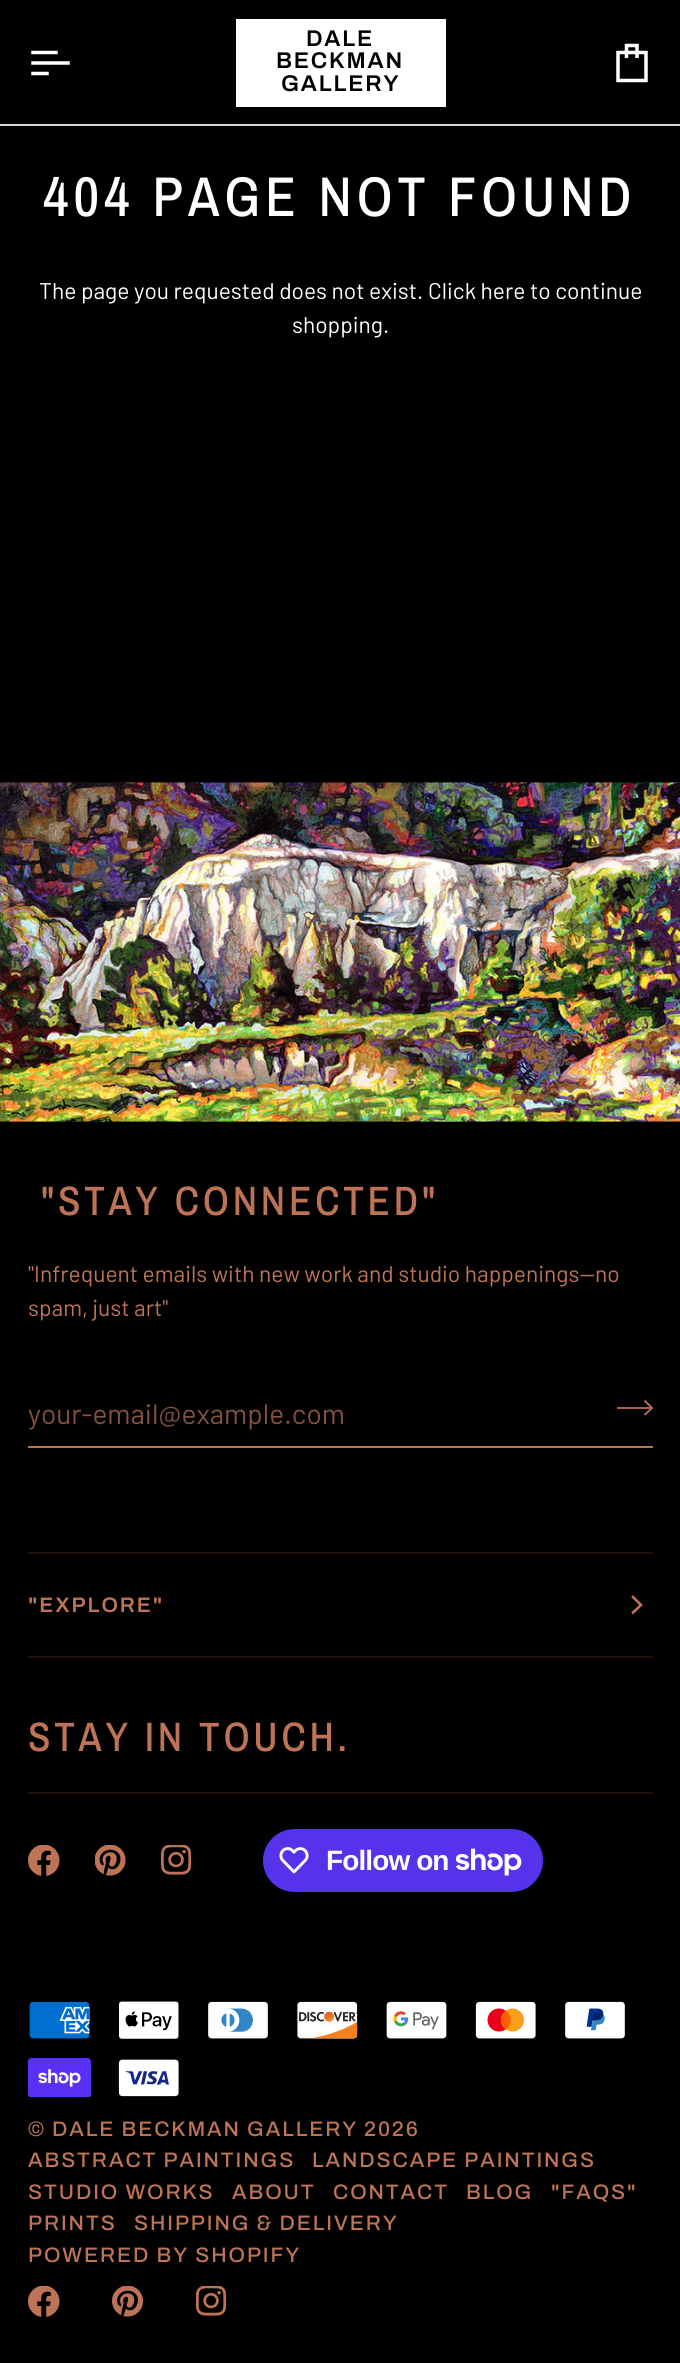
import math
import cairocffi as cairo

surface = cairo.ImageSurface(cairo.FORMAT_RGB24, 680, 2363)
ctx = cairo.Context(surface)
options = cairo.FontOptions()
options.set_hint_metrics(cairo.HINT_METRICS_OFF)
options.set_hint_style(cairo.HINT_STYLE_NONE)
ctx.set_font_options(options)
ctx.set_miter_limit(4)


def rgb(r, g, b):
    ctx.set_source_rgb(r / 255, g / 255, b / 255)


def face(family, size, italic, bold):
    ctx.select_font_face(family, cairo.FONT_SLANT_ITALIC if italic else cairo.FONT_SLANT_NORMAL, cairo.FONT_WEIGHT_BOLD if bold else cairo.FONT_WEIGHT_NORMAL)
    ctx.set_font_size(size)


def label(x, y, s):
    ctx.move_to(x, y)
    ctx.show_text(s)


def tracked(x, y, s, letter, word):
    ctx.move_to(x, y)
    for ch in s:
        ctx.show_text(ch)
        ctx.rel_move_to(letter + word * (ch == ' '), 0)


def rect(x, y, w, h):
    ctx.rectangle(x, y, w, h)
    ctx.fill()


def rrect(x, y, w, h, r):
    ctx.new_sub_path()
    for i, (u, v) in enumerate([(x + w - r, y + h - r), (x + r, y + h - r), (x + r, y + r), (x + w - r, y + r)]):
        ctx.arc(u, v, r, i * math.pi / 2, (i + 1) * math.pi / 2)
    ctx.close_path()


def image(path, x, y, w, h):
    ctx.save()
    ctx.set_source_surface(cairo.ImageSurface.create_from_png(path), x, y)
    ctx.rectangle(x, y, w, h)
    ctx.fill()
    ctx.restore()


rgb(0, 0, 0)
ctx.paint()
rgb(215, 215, 215)
rect(0, 124, 680, 2)
ctx.new_path()
ctx.move_to(56, 52.5)
ctx.line_to(33, 52.5)
ctx.move_to(68, 63)
ctx.line_to(33, 63)
ctx.move_to(47, 73.5)
ctx.line_to(33, 73.5)
rgb(255, 255, 255)
ctx.set_line_width(3.5)
ctx.set_line_cap(cairo.LINE_CAP_SQUARE)
ctx.stroke()
rect(236, 19, 210, 88)
face('Archivo SemiBold', 22.75, 0, 0)
rgb(0, 0, 0)
tracked(306, 46, 'DALE', 1.75, 0)
tracked(276, 68, 'BECKMAN', 1.75, 0)
tracked(281, 91, 'GALLERY', 1.75, 0)
ctx.new_path()
ctx.move_to(618, 52.5)
ctx.line_to(646, 52.5)
ctx.line_to(646, 80.5)
ctx.line_to(618, 80.5)
ctx.close_path()
ctx.move_to(626.5, 58)
ctx.line_to(626.5, 45.5)
ctx.line_to(637, 45.5)
ctx.line_to(637, 58)
rgb(255, 255, 255)
ctx.set_line_cap(cairo.LINE_CAP_BUTT)
ctx.stroke()
face('Archivo Narrow Medium', 56, 0, 0)
tracked(43, 216, '404 PAGE NOT FOUND', 5, 0)
face('Barlow', 22.75, 0, 0)
label(39, 299, 'The page you requested does not exist. Click here to continue')
label(292, 333, 'shopping.')
image('image0.png', 0, 782, 680, 340)
face('Archivo Narrow Medium', 41.1, 0, 0)
rgb(189, 116, 86)
tracked(41, 1215, '"STAY CONNECTED"', 3.75, 0)
face('Barlow', 22.75, 0, 0)
label(28, 1282, '"Infrequent emails with new work and studio happenings—no')
label(28, 1316, 'spam, just art"')
rect(28, 1446, 625, 2)
face('Barlow', 28, 0, 0)
rgb(132, 81, 60)
label(28, 1424, 'your-email@example.com')
ctx.new_path()
ctx.move_to(644.5, 1400.5)
ctx.line_to(652, 1408)
ctx.line_to(644.5, 1415)
ctx.move_to(617, 1408)
ctx.line_to(652, 1408)
rgb(189, 116, 86)
ctx.set_line_width(1.8)
ctx.stroke()
rgb(32, 19, 14)
rect(28, 1552, 625, 2)
rect(28, 1656, 625, 2)
face('Archivo SemiBold', 21, 0, 0)
rgb(189, 116, 86)
tracked(28, 1612, '"EXPLORE"', 1.9, 0)
ctx.new_path()
ctx.move_to(633, 1612.5)
ctx.line_to(641, 1605)
ctx.line_to(633, 1597)
ctx.set_line_width(2.6)
ctx.set_line_cap(cairo.LINE_CAP_SQUARE)
ctx.stroke()
face('Archivo Narrow Medium', 41.1, 0, 0)
tracked(28, 1751, 'STAY IN TOUCH.', 3.75, 0)
rgb(32, 19, 14)
rect(28, 1792, 625, 2)
image('image1.png', 28, 1845, 32, 31)
image('image2.png', 95, 1845, 31, 31)
image('image3.png', 161, 1845, 31, 30)
rgb(84, 51, 235)
rrect(263, 1829, 280, 63, 31.5)
ctx.fill()
image('image4.png', 279, 1847, 30, 27)
face('Liberation Sans', 28, 0, 1)
rgb(255, 255, 255)
tracked(326, 1870, 'Follow on', -0.9, 0)
image('image5.png', 455, 1848, 67, 28)
image('image6.png', 29, 2001, 61, 38)
image('image7.png', 119, 2001, 60, 38)
image('image8.png', 208, 2001, 60, 38)
image('image9.png', 297, 2001, 61, 38)
image('image10.png', 386, 2001, 61, 38)
image('image11.png', 475, 2001, 61, 38)
image('image12.png', 565, 2001, 60, 38)
image('image13.png', 28, 2058, 63, 39)
image('image14.png', 118, 2059, 61, 38)
face('Archivo Medium', 21, 0, 0)
rgb(189, 116, 86)
tracked(28, 2136, '© DALE BECKMAN GALLERY', 1.9, 0)
tracked(364, 2136, '2026', 1.9, 0)
tracked(28, 2167, 'ABSTRACT PAINTINGS', 1.9, 0)
tracked(312, 2167, 'LANDSCAPE PAINTINGS', 1.9, 0)
tracked(28, 2199, 'STUDIO WORKS', 1.9, 0)
tracked(232, 2199, 'ABOUT', 1.9, 0)
tracked(333, 2199, 'CONTACT', 1.9, 0)
tracked(466, 2199, 'BLOG', 1.9, 0)
tracked(551, 2199, '"FAQS"', 1.9, 0)
tracked(28, 2230, 'PRINTS', 1.9, 0)
tracked(134, 2230, 'SHIPPING & DELIVERY', 1.9, 0)
tracked(28, 2262, 'POWERED BY SHOPIFY', 1.9, 0)
image('image1.png', 28, 2286, 32, 31)
image('image15.png', 112, 2286, 32, 31)
image('image3.png', 196, 2286, 31, 30)
surface.write_to_png('render.png')
